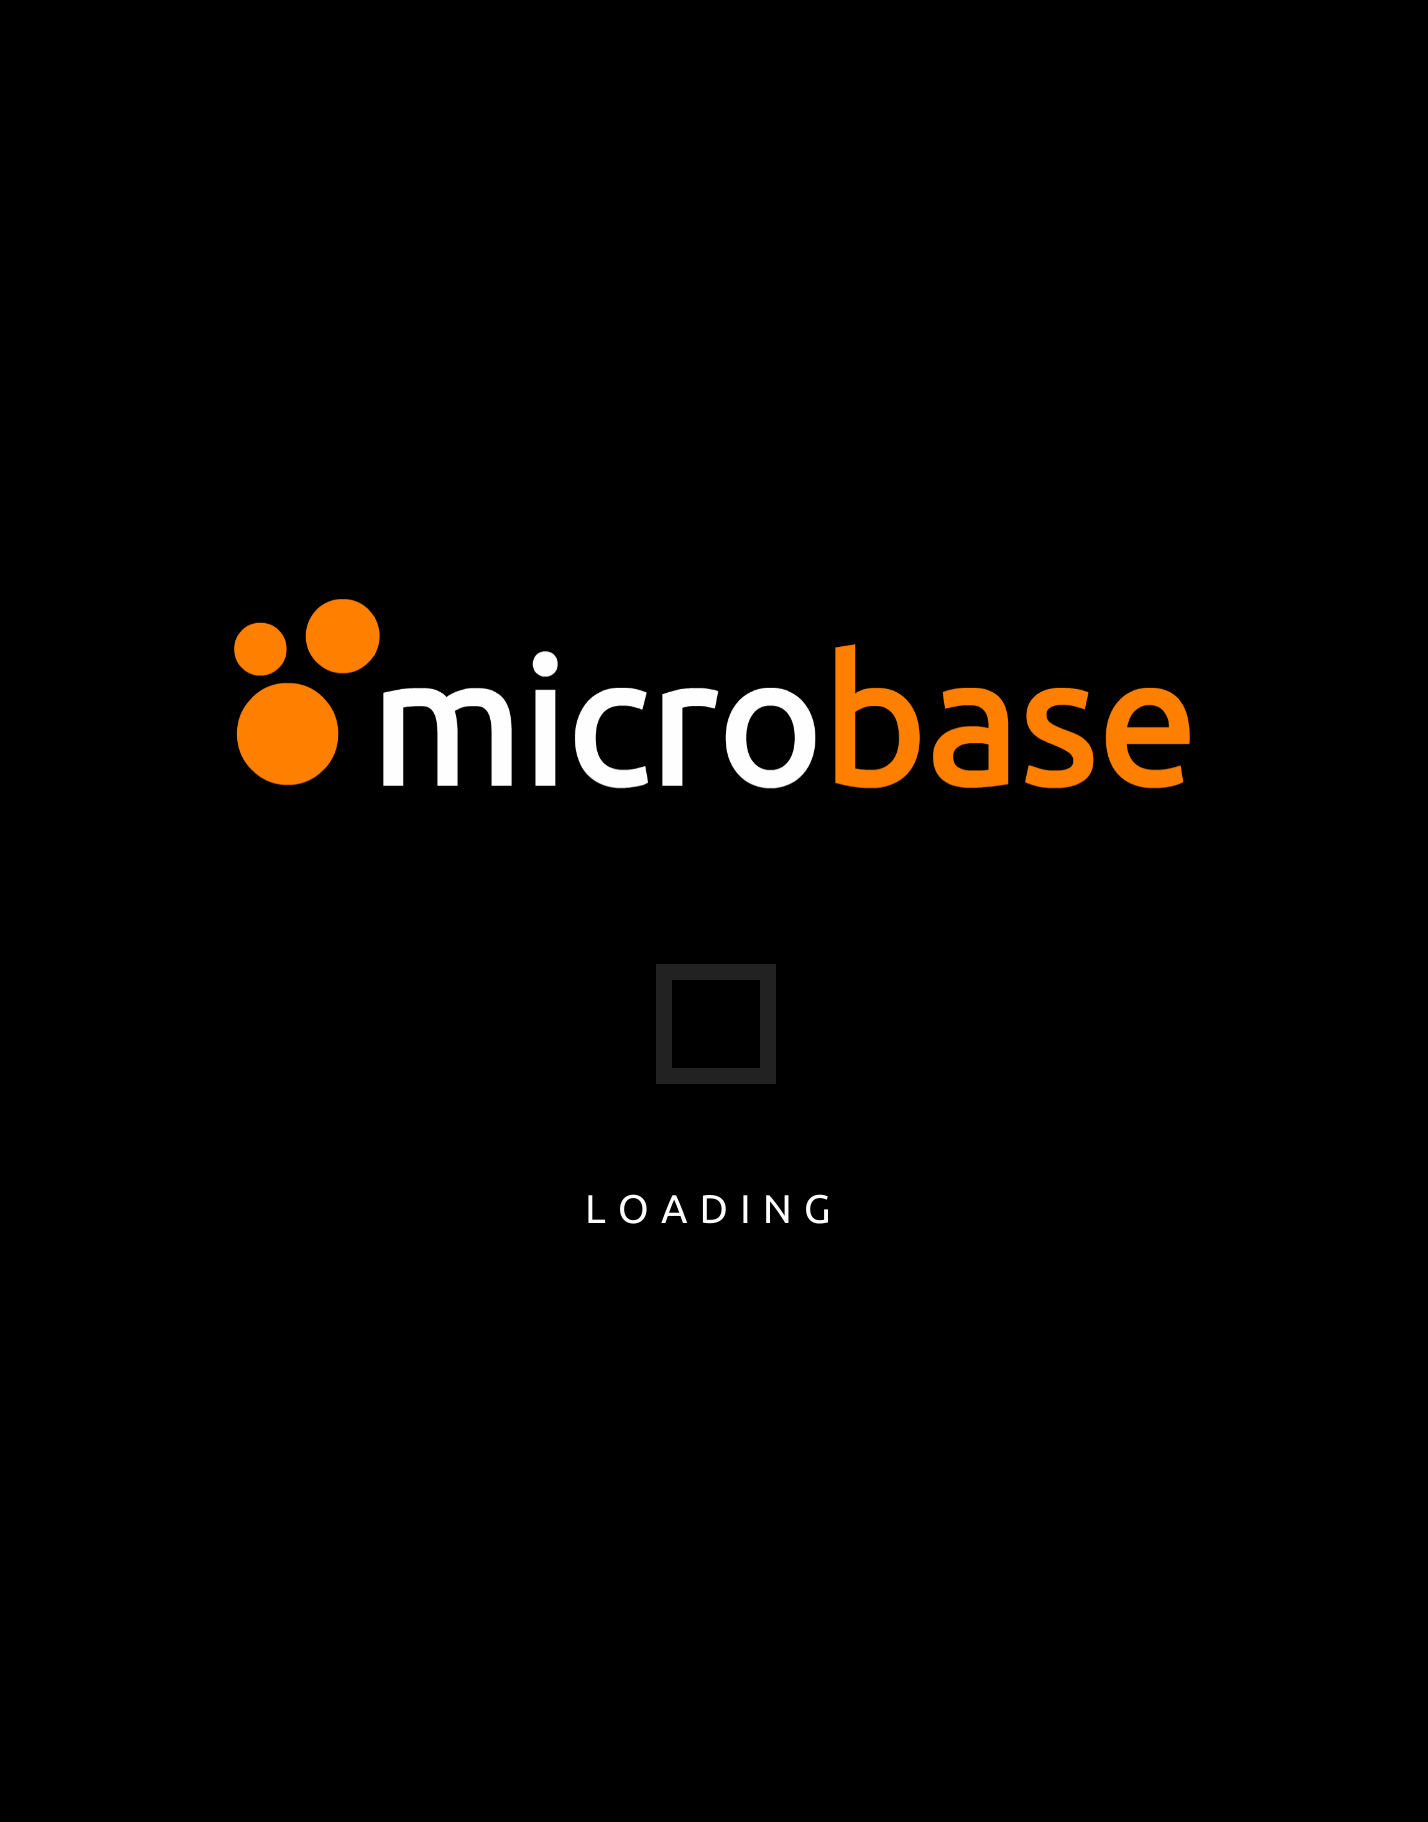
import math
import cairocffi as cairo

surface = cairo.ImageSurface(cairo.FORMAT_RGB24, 1428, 1822)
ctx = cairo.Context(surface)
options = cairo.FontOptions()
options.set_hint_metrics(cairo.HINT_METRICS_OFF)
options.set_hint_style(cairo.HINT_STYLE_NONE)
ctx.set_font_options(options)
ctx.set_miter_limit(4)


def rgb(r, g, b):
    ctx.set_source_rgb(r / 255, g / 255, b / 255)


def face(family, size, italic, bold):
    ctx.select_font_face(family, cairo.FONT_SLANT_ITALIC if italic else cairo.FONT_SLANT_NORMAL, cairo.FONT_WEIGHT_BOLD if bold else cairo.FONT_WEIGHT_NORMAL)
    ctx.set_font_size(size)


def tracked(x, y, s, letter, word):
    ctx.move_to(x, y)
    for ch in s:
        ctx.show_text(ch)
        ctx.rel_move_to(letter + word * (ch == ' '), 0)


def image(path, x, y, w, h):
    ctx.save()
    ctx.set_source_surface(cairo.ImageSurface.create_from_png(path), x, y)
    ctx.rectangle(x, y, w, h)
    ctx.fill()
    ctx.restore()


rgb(0, 0, 0)
ctx.paint()
image('image0.png', 234, 599, 956, 190)
ctx.rectangle(664, 972, 104, 104)
rgb(34, 34, 34)
ctx.set_line_width(16)
ctx.stroke()
face('Ubuntu', 40, 0, 0)
rgb(255, 255, 255)
tracked(585, 1223, 'LOADING', 12, 0)
surface.write_to_png('render.png')
